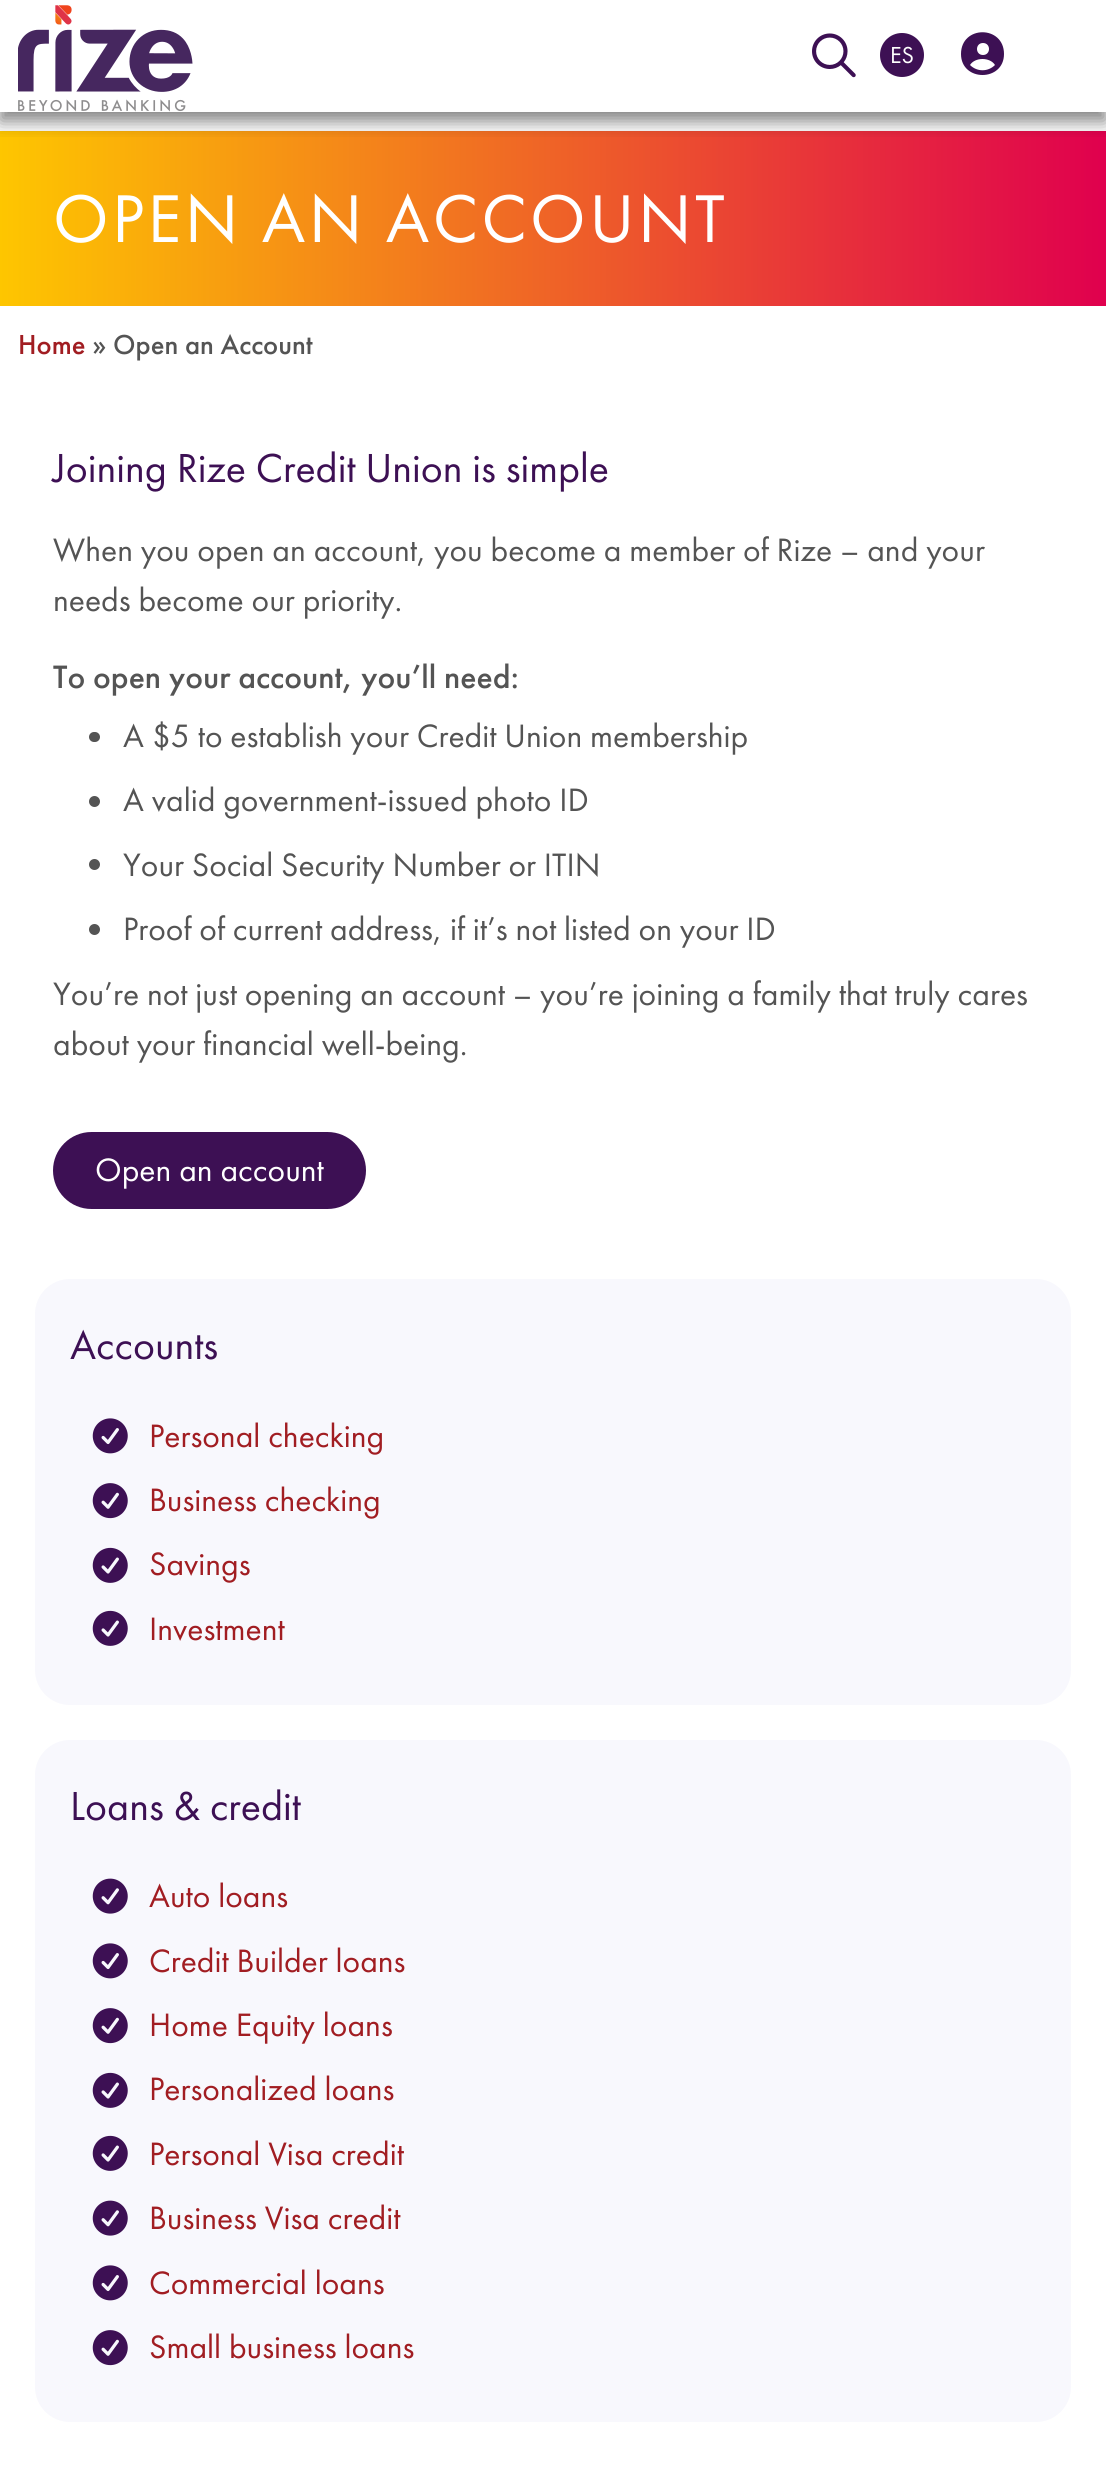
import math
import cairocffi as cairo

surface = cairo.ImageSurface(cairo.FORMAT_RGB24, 1106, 2470)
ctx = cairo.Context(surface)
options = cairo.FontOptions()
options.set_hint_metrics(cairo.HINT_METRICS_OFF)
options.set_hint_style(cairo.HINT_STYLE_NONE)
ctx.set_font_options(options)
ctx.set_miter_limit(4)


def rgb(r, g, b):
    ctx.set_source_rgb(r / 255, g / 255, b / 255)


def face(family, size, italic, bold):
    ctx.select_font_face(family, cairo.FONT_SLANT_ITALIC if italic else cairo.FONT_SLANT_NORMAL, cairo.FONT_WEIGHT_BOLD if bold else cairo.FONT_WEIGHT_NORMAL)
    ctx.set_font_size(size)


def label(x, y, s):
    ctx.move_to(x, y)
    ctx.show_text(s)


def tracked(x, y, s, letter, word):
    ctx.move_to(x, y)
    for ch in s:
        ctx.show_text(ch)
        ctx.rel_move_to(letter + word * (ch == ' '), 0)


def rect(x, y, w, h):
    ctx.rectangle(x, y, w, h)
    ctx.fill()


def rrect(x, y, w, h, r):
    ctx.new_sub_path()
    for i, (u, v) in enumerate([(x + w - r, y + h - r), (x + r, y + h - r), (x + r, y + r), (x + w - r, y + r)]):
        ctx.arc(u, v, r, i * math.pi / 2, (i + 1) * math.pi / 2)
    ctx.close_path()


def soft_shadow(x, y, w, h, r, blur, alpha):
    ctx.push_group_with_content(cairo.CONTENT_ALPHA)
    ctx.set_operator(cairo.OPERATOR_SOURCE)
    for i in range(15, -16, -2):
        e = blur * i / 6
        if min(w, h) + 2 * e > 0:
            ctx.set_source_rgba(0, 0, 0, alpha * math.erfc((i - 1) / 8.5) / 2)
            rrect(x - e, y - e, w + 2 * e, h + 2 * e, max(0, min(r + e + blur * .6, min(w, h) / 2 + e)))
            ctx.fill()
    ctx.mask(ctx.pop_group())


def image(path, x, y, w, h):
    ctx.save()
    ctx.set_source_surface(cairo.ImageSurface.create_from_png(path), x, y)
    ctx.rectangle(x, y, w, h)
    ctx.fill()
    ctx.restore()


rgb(255, 255, 255)
ctx.paint()
gradient = cairo.LinearGradient(0, 219, 1106, 219)
gradient.add_color_stop_rgba(0, 0.996, 0.776, 0, 1)
gradient.add_color_stop_rgba(1, 0.878, 0, 0.306, 1)
ctx.set_source(gradient)
rect(0, 131, 1106, 175)
ctx.save()
ctx.rectangle(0, 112, 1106, 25)
ctx.clip()
rgb(0, 0, 0)
soft_shadow(0, 9, 1106, 112, 0, 9, 0.5)
ctx.restore()
image('image0.png', 18, 5, 175, 107)
image('image1.png', 812, 33, 44, 45)
rgb(61, 16, 84)
ctx.arc(902, 55, 22, 0, 2 * math.pi)
ctx.fill()
face('Futura PT', 24, 0, 0)
rgb(255, 255, 255)
label(890, 63, 'ES')
rgb(61, 16, 84)
ctx.new_path()
ctx.move_to(995, 65)
ctx.curve_to(990, 57, 975, 57, 970, 65)
ctx.curve_to(977, 72, 988, 72, 995, 65)
ctx.close_path()
ctx.move_to(961, 54)
ctx.curve_to(961, 25, 1004, 25, 1004, 54)
ctx.curve_to(1004, 82, 961, 82, 961, 54)
ctx.close_path()
ctx.move_to(983, 55)
ctx.curve_to(991, 55, 991, 43, 983, 43)
ctx.curve_to(975, 43, 975, 55, 983, 55)
ctx.close_path()
ctx.fill()
face('Futura PT', 70, 0, 0)
rgb(255, 255, 255)
tracked(53, 242, 'OPEN AN ACCOUNT', 3.5, 0)
face('Futura PT Medium', 28.5, 0, 0)
rgb(161, 29, 34)
label(18, 354, 'Home')
rgb(84, 84, 84)
label(92, 354, '» Open an Account')
face('Futura PT', 42, 0, 0)
rgb(61, 16, 84)
label(53, 482, 'Joining Rize Credit Union is simple')
face('Futura PT', 33.6, 0, 0)
rgb(84, 84, 84)
label(53, 561, 'When you open an account, you become a member of Rize – and your')
label(53, 611, 'needs become our priority.')
face('Futura PT Medium', 33.6, 0, 0)
label(53, 688, 'To open your account, you’ll need:')
rrect(89, 732, 11, 10, 5)
ctx.fill()
face('Futura PT', 33.6, 0, 0)
label(123, 747, 'A $5 to establish your Credit Union membership')
ctx.new_path()
ctx.arc(94.5, 801.5, 5.5, 0, 2 * math.pi)
ctx.fill()
label(123, 811, 'A valid government-issued photo ID')
ctx.new_path()
ctx.arc(94.5, 864.5, 5.5, 0, 2 * math.pi)
ctx.fill()
label(123, 876, 'Your Social Security Number or ITIN')
ctx.new_path()
ctx.arc(94.5, 929.5, 5.5, 0, 2 * math.pi)
ctx.fill()
label(123, 940, 'Proof of current address, if it’s not listed on your ID')
label(53, 1005, 'You’re not just opening an account – you’re joining a family that truly cares')
label(53, 1055, 'about your financial well-being.')
rgb(61, 16, 84)
rrect(53, 1132, 313, 77, 38.5)
ctx.fill()
rgb(255, 255, 255)
label(95, 1181, 'Open an account')
rgb(248, 248, 253)
rrect(35, 1279, 1036, 426, 35)
ctx.fill()
face('Futura PT', 42, 0, 0)
rgb(61, 16, 84)
label(70, 1359, 'Accounts')
image('image2.png', 92, 1418, 36, 36)
face('Futura PT', 33.6, 0, 0)
rgb(161, 29, 34)
label(149, 1447, 'Personal checking')
image('image3.png', 92, 1483, 36, 36)
label(149, 1511, 'Business checking')
image('image4.png', 92, 1547, 36, 36)
label(149, 1575, 'Savings')
image('image4.png', 92, 1610, 36, 36)
label(149, 1640, 'Investment')
rgb(248, 248, 253)
rrect(35, 1740, 1036, 682, 35)
ctx.fill()
face('Futura PT', 42, 0, 0)
rgb(61, 16, 84)
label(70, 1820, 'Loans & credit')
image('image5.png', 92, 1878, 36, 36)
face('Futura PT', 33.6, 0, 0)
rgb(161, 29, 34)
label(149, 1907, 'Auto loans')
image('image2.png', 92, 1943, 36, 36)
label(149, 1972, 'Credit Builder loans')
image('image3.png', 92, 2008, 36, 36)
label(149, 2036, 'Home Equity loans')
image('image4.png', 92, 2072, 36, 36)
label(149, 2100, 'Personalized loans')
image('image4.png', 92, 2135, 36, 36)
label(149, 2165, 'Personal Visa credit')
image('image5.png', 92, 2200, 36, 36)
label(149, 2229, 'Business Visa credit')
image('image2.png', 92, 2265, 36, 36)
label(149, 2294, 'Commercial loans')
image('image3.png', 92, 2330, 36, 36)
label(149, 2358, 'Small business loans')
surface.write_to_png('render.png')
